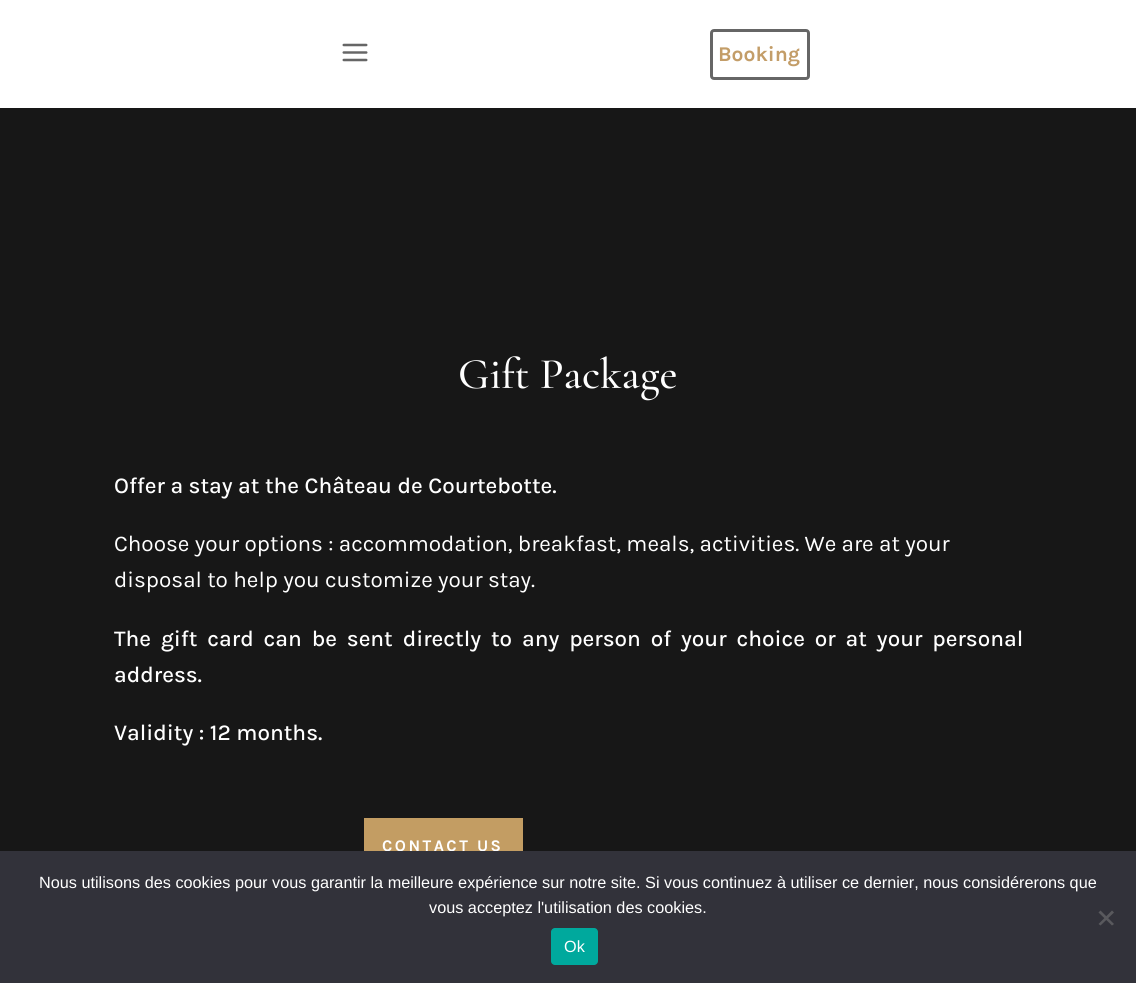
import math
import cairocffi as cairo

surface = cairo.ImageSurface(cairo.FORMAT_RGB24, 1136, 983)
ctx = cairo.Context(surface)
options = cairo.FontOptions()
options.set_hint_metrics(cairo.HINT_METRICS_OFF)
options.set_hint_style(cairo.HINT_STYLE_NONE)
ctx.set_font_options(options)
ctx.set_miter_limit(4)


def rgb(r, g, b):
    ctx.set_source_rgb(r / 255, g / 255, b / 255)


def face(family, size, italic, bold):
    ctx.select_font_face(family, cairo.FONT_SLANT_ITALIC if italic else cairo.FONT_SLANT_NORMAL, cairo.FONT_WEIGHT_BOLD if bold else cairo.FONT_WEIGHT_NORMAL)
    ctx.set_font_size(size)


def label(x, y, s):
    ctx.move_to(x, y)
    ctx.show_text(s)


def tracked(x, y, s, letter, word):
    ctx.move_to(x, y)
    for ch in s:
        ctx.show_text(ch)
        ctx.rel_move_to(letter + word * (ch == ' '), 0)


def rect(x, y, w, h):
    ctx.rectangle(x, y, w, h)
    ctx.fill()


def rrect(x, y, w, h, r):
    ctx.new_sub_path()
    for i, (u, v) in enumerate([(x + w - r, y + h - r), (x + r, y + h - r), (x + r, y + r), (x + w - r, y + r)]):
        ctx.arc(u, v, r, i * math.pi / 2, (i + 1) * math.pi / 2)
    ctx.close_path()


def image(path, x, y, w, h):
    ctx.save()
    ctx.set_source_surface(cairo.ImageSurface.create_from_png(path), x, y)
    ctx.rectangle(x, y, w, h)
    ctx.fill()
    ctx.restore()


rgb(23, 23, 23)
ctx.paint()
rgb(255, 255, 255)
rect(0, 0, 1136, 108)
image('image0.png', 342, 43, 26, 19)
rrect(711.5, 30.5, 97, 48, 2.5)
rgb(102, 102, 102)
ctx.set_line_width(3)
ctx.stroke()
face('Karla', 21, 0, 1)
rgb(195, 157, 104)
label(718, 61, 'Booking')
face('Cormorant Garamond Medium', 43.75, 0, 0)
rgb(255, 255, 255)
label(458, 388, 'Gift Package')
face('Karla Medium', 22.5, 0, 0)
label(114, 493, 'Offer a stay at the Château de Courtebotte.')
face('Karla', 22.5, 0, 0)
label(114, 551, 'Choose your options : accommodation, breakfast, meals, activities. We are at your')
label(114, 587, 'disposal to help you customize your stay.')
face('Karla Medium', 22.5, 0, 0)
tracked(114, 646, 'The gift card can be sent directly to any person of your choice or at your personal', 0, 4.4)
label(114, 682, 'address.')
label(114, 740, 'Validity : 12 months.')
rgb(195, 157, 99)
rect(364, 818, 159, 33)
face('Karla', 16.25, 0, 1)
rgb(255, 255, 255)
tracked(382, 851, 'CONTACT US', 2.5, 0)
rgb(50, 50, 58)
rect(0, 851, 1136, 132)
face('Liberation Sans', 16.25, 0, 0)
rgb(255, 255, 255)
label(39, 888, 'Nous utilisons des cookies pour vous garantir la meilleure expérience sur notre site. Si vous continuez à utiliser ce dernier, nous considérerons que')
label(429, 913, 'vous acceptez l\'utilisation des cookies.')
rgb(89, 89, 93)
ctx.new_path()
ctx.move_to(1112, 910.5)
ctx.line_to(1114, 912.5)
ctx.line_to(1100.5, 925.5)
ctx.line_to(1098.5, 924)
ctx.close_path()
ctx.fill()
ctx.new_path()
ctx.move_to(1098.5, 912.5)
ctx.line_to(1100.5, 910.5)
ctx.line_to(1114, 924)
ctx.line_to(1112, 925.5)
ctx.close_path()
ctx.fill()
rgb(0, 169, 157)
rrect(551, 928, 47, 37, 4)
ctx.fill()
rgb(255, 255, 255)
label(564, 952, 'Ok')
surface.write_to_png('render.png')
